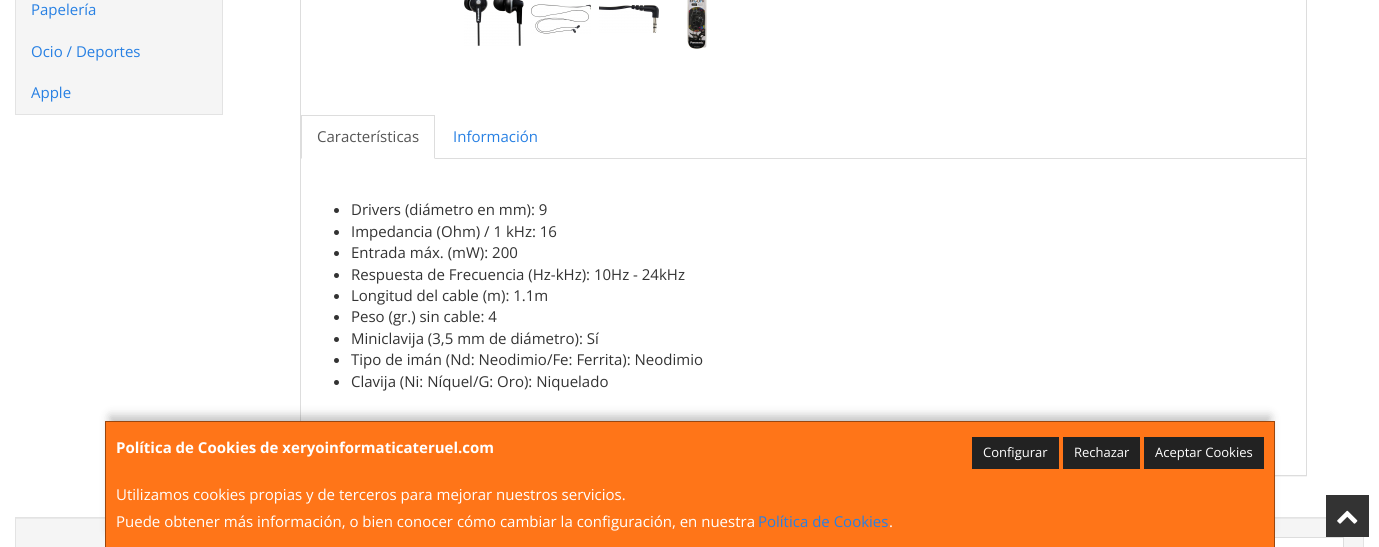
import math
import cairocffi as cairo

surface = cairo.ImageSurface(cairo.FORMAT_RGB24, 1379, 547)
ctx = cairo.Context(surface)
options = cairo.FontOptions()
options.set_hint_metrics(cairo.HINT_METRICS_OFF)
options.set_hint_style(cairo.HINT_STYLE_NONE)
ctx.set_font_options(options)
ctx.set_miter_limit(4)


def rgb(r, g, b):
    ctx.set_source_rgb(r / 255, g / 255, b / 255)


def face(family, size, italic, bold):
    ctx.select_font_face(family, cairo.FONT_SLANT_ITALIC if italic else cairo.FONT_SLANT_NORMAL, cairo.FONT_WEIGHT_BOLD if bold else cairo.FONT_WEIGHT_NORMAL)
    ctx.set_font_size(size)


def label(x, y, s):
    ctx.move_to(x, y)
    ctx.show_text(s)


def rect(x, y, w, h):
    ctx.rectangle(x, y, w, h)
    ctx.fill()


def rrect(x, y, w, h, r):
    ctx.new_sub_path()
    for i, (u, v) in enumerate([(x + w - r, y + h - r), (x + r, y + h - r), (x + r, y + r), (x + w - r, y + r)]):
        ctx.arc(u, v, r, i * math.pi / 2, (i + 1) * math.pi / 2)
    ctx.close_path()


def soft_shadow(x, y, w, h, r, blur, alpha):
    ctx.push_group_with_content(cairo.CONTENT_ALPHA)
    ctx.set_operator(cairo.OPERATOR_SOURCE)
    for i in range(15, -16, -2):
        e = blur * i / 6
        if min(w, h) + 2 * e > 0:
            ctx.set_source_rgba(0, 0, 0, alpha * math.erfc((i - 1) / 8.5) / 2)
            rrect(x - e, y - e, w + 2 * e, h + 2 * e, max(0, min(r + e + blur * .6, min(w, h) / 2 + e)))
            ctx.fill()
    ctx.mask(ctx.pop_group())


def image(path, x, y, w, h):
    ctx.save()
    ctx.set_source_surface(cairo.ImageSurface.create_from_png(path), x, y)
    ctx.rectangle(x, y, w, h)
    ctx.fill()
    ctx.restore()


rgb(255, 255, 255)
ctx.paint()
rgb(245, 245, 245)
ctx.rectangle(15.5, -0.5, 207, 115)
ctx.fill_preserve()
rgb(227, 227, 227)
ctx.set_line_width(1)
ctx.stroke()
face('Open Sans', 15, 0, 0)
rgb(39, 128, 227)
label(31, 15, 'Papelería')
label(31, 57, 'Ocio / Deportes')
label(31, 98, 'Apple')
ctx.save()
ctx.rectangle(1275, 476, 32, 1)
ctx.clip()
rgb(0, 0, 0)
soft_shadow(300, -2, 1007, 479, 0, 0.5, 0.05)
ctx.restore()
ctx.rectangle(300.5, -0.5, 1006, 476)
rgb(221, 221, 221)
ctx.stroke()
image('image0.png', 464, 0, 60, 46)
image('image1.png', 531, 4, 60, 30)
image('image2.png', 599, 5, 60, 28)
image('image3.png', 687, 0, 20, 49)
rect(435, 158, 871, 1)
rect(301, 115, 134, 1)
ctx.new_path()
ctx.move_to(435, 115)
ctx.line_to(435, 159)
ctx.line_to(434, 158)
ctx.line_to(434, 116)
ctx.close_path()
ctx.fill()
ctx.new_path()
ctx.move_to(301, 159)
ctx.line_to(301, 115)
ctx.line_to(302, 116)
ctx.line_to(302, 158)
ctx.close_path()
ctx.fill()
rgb(85, 85, 85)
label(317, 142, 'Características')
rgb(39, 128, 227)
label(453, 142, 'Información')
rgb(51, 51, 51)
ctx.new_path()
ctx.arc(336.5, 210.5, 2.5, 0, 2 * math.pi)
ctx.fill()
label(351, 215, 'Drivers (diámetro en mm): 9')
ctx.new_path()
ctx.arc(336.5, 232.5, 2.5, 0, 2 * math.pi)
ctx.fill()
label(351, 237, 'Impedancia (Ohm) / 1 kHz: 16')
ctx.new_path()
ctx.arc(336.5, 253.5, 2.5, 0, 2 * math.pi)
ctx.fill()
label(351, 258, 'Entrada máx. (mW): 200')
ctx.new_path()
ctx.arc(336.5, 275.5, 2.5, 0, 2 * math.pi)
ctx.fill()
label(351, 280, 'Respuesta de Frecuencia (Hz-kHz): 10Hz - 24kHz')
ctx.new_path()
ctx.arc(336.5, 296.5, 2.5, 0, 2 * math.pi)
ctx.fill()
label(351, 301, 'Longitud del cable (m): 1.1m')
ctx.new_path()
ctx.arc(336.5, 317.5, 2.5, 0, 2 * math.pi)
ctx.fill()
label(351, 322, 'Peso (gr.) sin cable: 4')
ctx.new_path()
ctx.arc(336.5, 339.5, 2.5, 0, 2 * math.pi)
ctx.fill()
label(351, 344, 'Miniclavija (3,5 mm de diámetro): Sí')
ctx.new_path()
ctx.arc(336.5, 360.5, 2.5, 0, 2 * math.pi)
ctx.fill()
label(351, 365, 'Tipo de imán (Nd: Neodimio/Fe: Ferrita): Neodimio')
ctx.new_path()
ctx.arc(336.5, 382.5, 2.5, 0, 2 * math.pi)
ctx.fill()
label(351, 387, 'Clavija (Ni: Níquel/G: Oro): Niquelado')
rgb(245, 245, 245)
rect(16, 519, 1347, 28)
rgb(233, 233, 233)
rect(16, 518, 1310, 1)
ctx.rectangle(15.5, 517.5, 1348, 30)
rgb(227, 227, 227)
ctx.stroke()
rgb(255, 255, 255)
rect(1275, 538, 68, 9)
ctx.rectangle(921.5, 537.5, 422, 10)
rgb(221, 221, 221)
ctx.stroke()
rgb(0, 0, 0)
soft_shadow(110, 416, 1160, 116, 0, 5, 0.25)
rgb(255, 117, 24)
rect(105, 421, 1170, 126)
rgb(153, 70, 14)
ctx.new_path()
ctx.move_to(105, 421)
ctx.line_to(1275, 421)
ctx.line_to(1274, 422)
ctx.line_to(106, 422)
ctx.close_path()
ctx.fill()
ctx.set_source_rgba(0, 0, 0, 0.4)
ctx.new_path()
ctx.move_to(1275, 421)
ctx.line_to(1275, 547)
ctx.line_to(1274, 547)
ctx.line_to(1274, 422)
ctx.close_path()
ctx.fill()
ctx.new_path()
ctx.move_to(105, 547)
ctx.line_to(105, 421)
ctx.line_to(106, 422)
ctx.line_to(106, 547)
ctx.close_path()
ctx.fill()
face('Open Sans', 15, 0, 1)
rgb(255, 255, 255)
label(116, 453, 'Política de Cookies de xeryoinformaticateruel.com')
rgb(34, 34, 34)
rect(972, 437, 87, 32)
face('Open Sans', 13, 0, 0)
rgb(255, 255, 255)
label(983, 457, 'Configurar')
rgb(34, 34, 34)
rect(1063, 437, 77, 32)
rgb(255, 255, 255)
label(1074, 457, 'Rechazar')
rgb(34, 34, 34)
rect(1144, 437, 120, 32)
rgb(255, 255, 255)
label(1155, 457, 'Aceptar Cookies')
face('Open Sans', 15, 0, 0)
label(116, 500, 'Utilizamos cookies propias y de terceros para mejorar nuestros servicios.')
label(116, 527, 'Puede obtener más información, o bien conocer cómo cambiar la configuración, en nuestra')
rgb(39, 128, 227)
label(758, 527, 'Política de Cookies')
rgb(255, 255, 255)
label(889, 527, '.')
rgb(51, 51, 51)
rect(1326, 495, 43, 42)
image('image4.png', 1337, 510, 21, 14)
surface.write_to_png('render.png')
